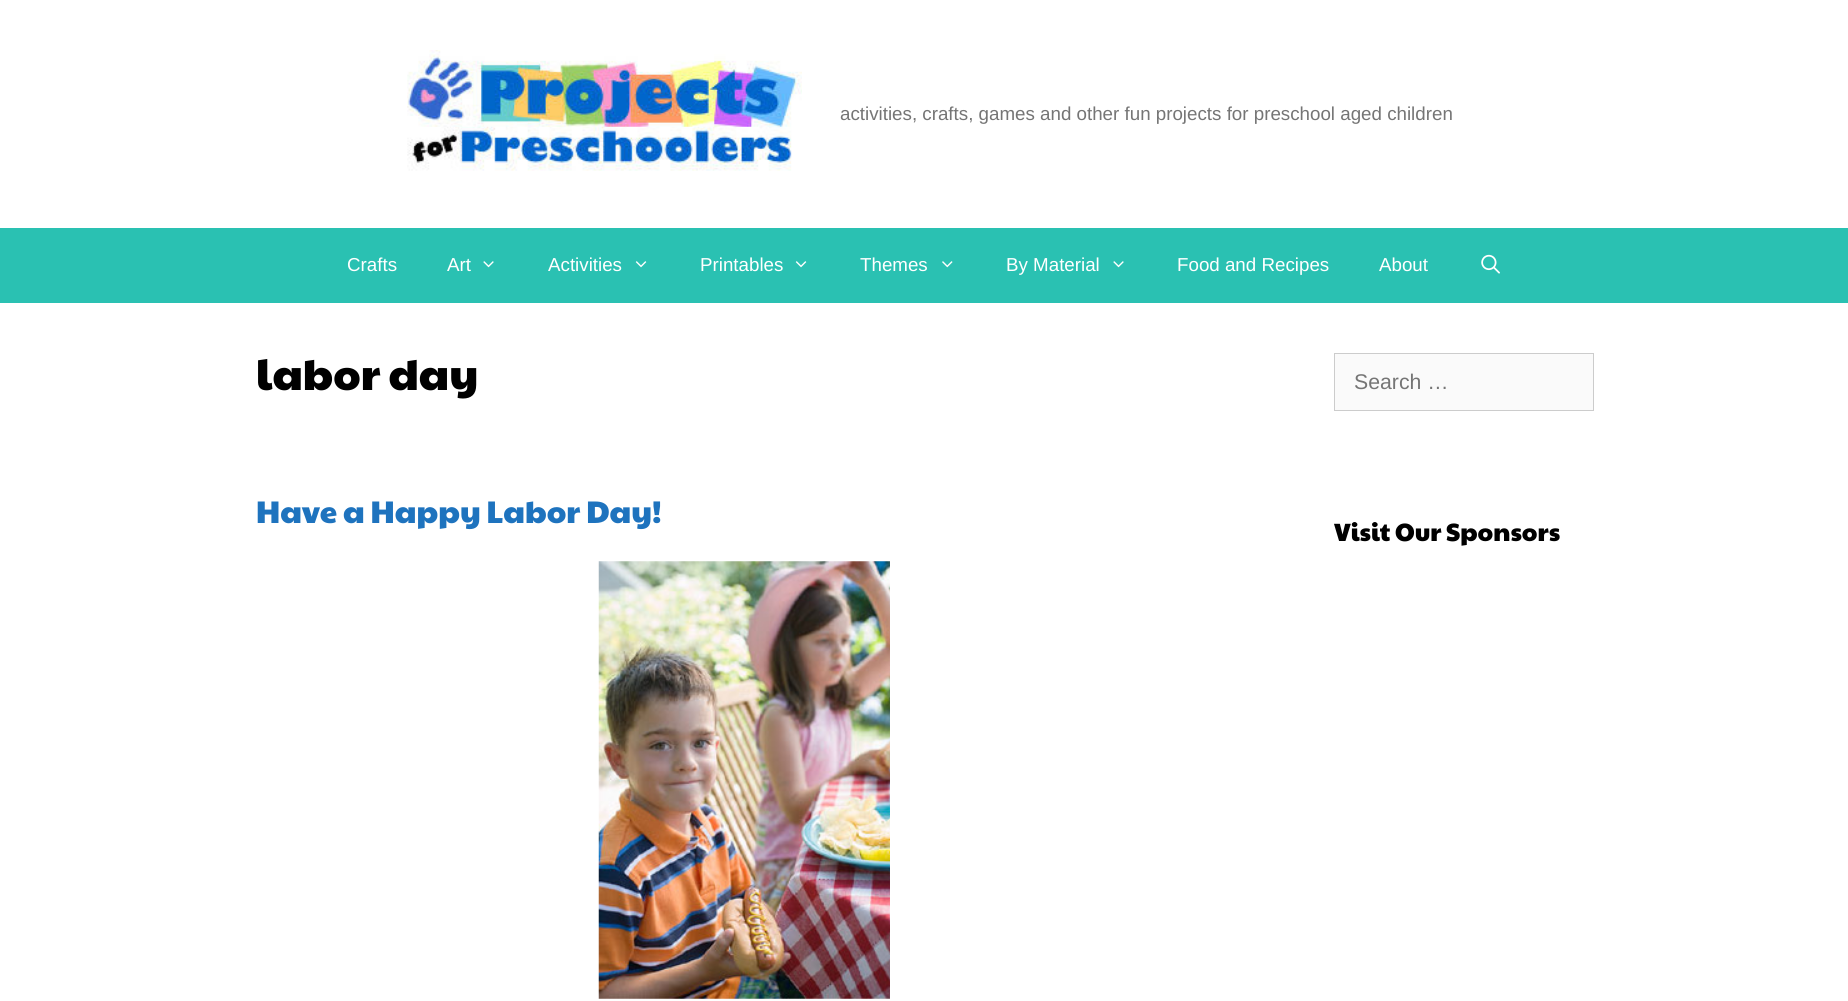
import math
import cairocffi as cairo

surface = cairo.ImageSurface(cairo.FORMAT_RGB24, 1848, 1001)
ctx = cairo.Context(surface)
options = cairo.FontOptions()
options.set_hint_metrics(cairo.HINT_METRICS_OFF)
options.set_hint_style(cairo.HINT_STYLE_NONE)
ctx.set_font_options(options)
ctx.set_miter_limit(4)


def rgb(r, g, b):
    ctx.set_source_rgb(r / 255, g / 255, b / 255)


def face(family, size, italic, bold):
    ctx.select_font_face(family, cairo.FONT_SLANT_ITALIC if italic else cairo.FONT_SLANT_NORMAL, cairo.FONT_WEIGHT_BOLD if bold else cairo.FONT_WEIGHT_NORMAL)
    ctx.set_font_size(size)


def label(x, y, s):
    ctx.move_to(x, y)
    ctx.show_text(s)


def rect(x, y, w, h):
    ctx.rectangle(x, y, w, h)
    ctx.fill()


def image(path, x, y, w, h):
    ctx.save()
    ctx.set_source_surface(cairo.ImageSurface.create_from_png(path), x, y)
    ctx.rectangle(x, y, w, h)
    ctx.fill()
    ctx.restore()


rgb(255, 255, 255)
ctx.paint()
image('image0.png', 407, 50, 395, 121)
face('Liberation Sans', 18.75, 0, 0)
rgb(117, 117, 117)
label(840, 120, 'activities, crafts, games and other fun projects for preschool aged children')
rgb(42, 193, 178)
rect(0, 228, 1848, 75)
rgb(255, 255, 255)
label(347, 271, 'Crafts')
label(447, 271, 'Art')
image('image1.png', 483, 261, 11, 7)
label(548, 271, 'Activities')
image('image2.png', 635, 261, 12, 7)
label(700, 271, 'Printables')
image('image2.png', 795, 261, 12, 7)
label(860, 271, 'Themes')
image('image3.png', 942, 261, 11, 7)
label(1006, 271, 'By Material')
image('image1.png', 1113, 261, 11, 7)
label(1177, 271, 'Food and Recipes')
label(1379, 271, 'About')
image('image4.png', 1481, 254, 19, 20)
face('Paytone One', 43.75, 0, 0)
rgb(0, 0, 0)
label(256, 390, 'labor day')
face('Paytone One', 31.25, 0, 0)
rgb(30, 115, 190)
label(256, 523, 'Have a Happy Labor Day!')
image('image5.png', 598, 561, 292, 438)
rgb(250, 250, 250)
ctx.rectangle(1334.5, 353.5, 259, 57)
ctx.fill_preserve()
rgb(204, 204, 204)
ctx.set_line_width(1)
ctx.stroke()
face('Liberation Sans', 21.25, 0, 0)
rgb(117, 117, 117)
label(1354, 389, 'Search …')
face('Paytone One', 25, 0, 0)
rgb(0, 0, 0)
label(1334, 541, 'Visit Our Sponsors')
surface.write_to_png('render.png')
